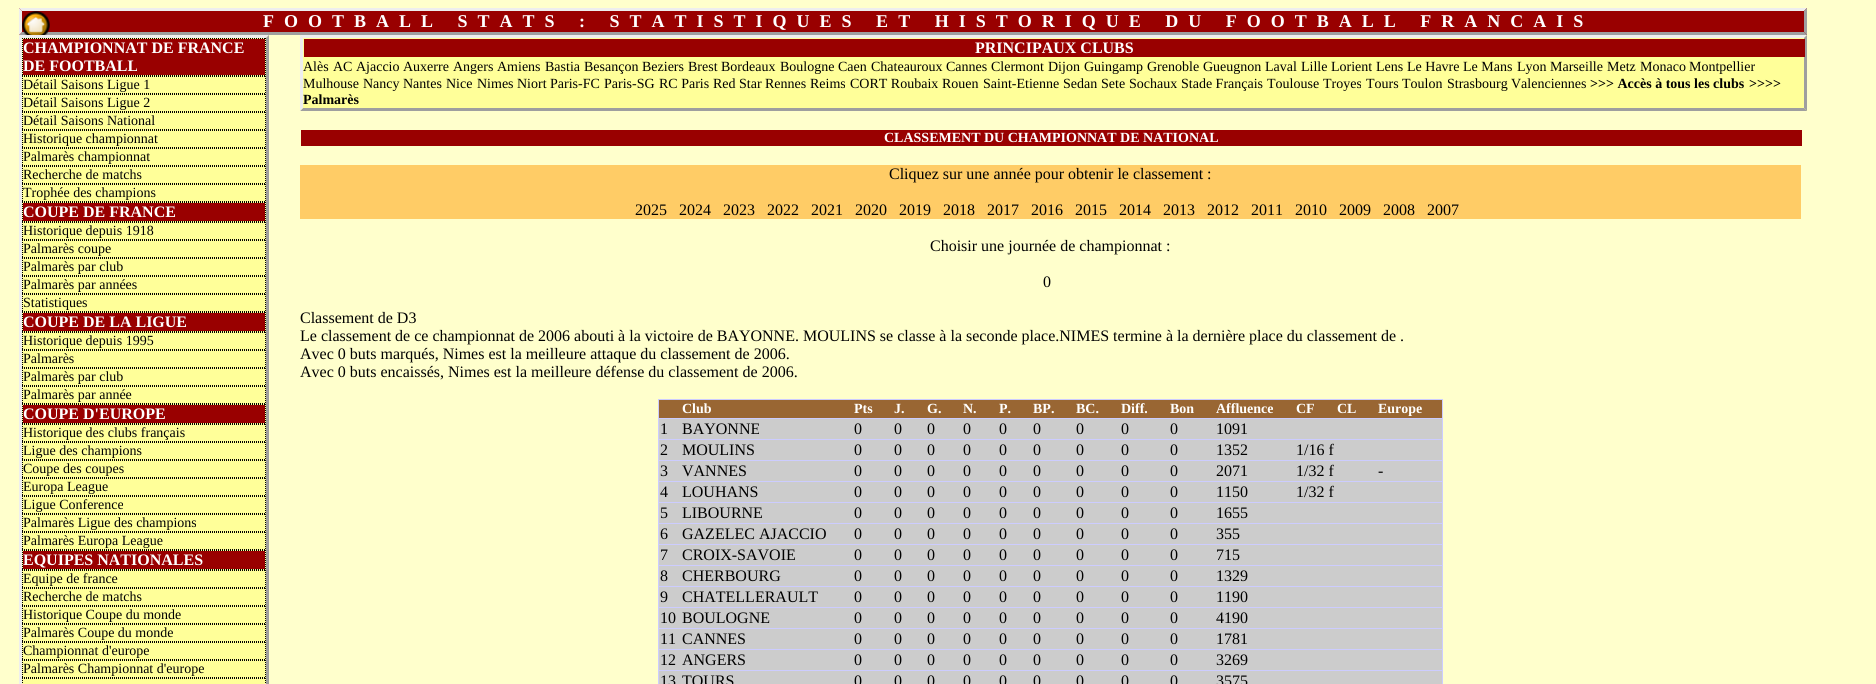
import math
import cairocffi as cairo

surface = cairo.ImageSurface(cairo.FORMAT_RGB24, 1876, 684)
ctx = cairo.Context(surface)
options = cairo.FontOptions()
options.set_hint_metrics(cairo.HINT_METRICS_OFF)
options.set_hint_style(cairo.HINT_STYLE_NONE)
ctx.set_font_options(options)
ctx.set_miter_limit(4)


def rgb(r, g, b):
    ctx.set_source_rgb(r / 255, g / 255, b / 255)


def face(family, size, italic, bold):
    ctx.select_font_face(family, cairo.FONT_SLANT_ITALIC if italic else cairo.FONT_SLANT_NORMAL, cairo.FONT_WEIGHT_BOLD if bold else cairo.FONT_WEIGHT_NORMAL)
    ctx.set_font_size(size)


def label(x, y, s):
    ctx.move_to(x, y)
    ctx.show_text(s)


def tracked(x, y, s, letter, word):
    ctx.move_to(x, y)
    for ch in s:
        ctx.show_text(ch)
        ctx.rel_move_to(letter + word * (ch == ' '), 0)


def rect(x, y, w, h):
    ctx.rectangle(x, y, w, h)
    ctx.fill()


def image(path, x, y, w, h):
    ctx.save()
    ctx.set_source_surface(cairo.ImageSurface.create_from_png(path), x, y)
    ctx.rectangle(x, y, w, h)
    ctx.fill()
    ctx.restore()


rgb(255, 255, 204)
ctx.paint()
rgb(153, 0, 0)
rect(19, 8, 1788, 27)
rgb(238, 238, 238)
ctx.new_path()
ctx.move_to(19, 8)
ctx.line_to(1807, 8)
ctx.line_to(1804, 11)
ctx.line_to(22, 11)
ctx.close_path()
ctx.fill()
rgb(159, 159, 159)
ctx.new_path()
ctx.move_to(1807, 8)
ctx.line_to(1807, 35)
ctx.line_to(1804, 32)
ctx.line_to(1804, 11)
ctx.close_path()
ctx.fill()
ctx.new_path()
ctx.move_to(1807, 35)
ctx.line_to(19, 35)
ctx.line_to(22, 32)
ctx.line_to(1804, 32)
ctx.close_path()
ctx.fill()
rgb(238, 238, 238)
ctx.new_path()
ctx.move_to(19, 35)
ctx.line_to(19, 8)
ctx.line_to(22, 11)
ctx.line_to(22, 32)
ctx.close_path()
ctx.fill()
image('image0.png', 22, 11, 28, 24)
face('Liberation Serif', 18, 0, 1)
rgb(255, 255, 255)
tracked(263, 27, 'FOOTBALL STATS : STATISTIQUES ET HISTORIQUE DU FOOTBALL FRANCAIS', 10, 0)
rgb(255, 255, 153)
rect(19, 35, 250, 649)
rgb(238, 238, 238)
ctx.new_path()
ctx.move_to(19, 35)
ctx.line_to(269, 35)
ctx.line_to(266, 38)
ctx.line_to(22, 38)
ctx.close_path()
ctx.fill()
rgb(159, 159, 159)
ctx.new_path()
ctx.move_to(269, 35)
ctx.line_to(269, 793)
ctx.line_to(266, 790)
ctx.line_to(266, 38)
ctx.close_path()
ctx.fill()
rgb(238, 238, 238)
ctx.new_path()
ctx.move_to(19, 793)
ctx.line_to(19, 35)
ctx.line_to(22, 38)
ctx.line_to(22, 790)
ctx.close_path()
ctx.fill()
ctx.new_path()
ctx.move_to(22, 38.5)
ctx.line_to(266, 38.5)
rgb(0, 0, 0)
ctx.set_line_width(1)
ctx.set_dash([1, 1])
ctx.stroke()
ctx.new_path()
ctx.move_to(265.5, 38)
ctx.line_to(265.5, 76)
ctx.stroke()
ctx.new_path()
ctx.move_to(22, 75.5)
ctx.line_to(266, 75.5)
ctx.stroke()
ctx.new_path()
ctx.move_to(22.5, 38)
ctx.line_to(22.5, 76)
ctx.stroke()
rgb(153, 0, 0)
rect(23, 39, 242, 36)
face('Liberation Serif', 16, 0, 1)
rgb(255, 255, 255)
label(23, 53, 'CHAMPIONNAT DE FRANCE')
label(23, 71, 'DE FOOTBALL')
ctx.new_path()
ctx.move_to(22, 76.5)
ctx.line_to(266, 76.5)
rgb(0, 0, 0)
ctx.stroke()
ctx.new_path()
ctx.move_to(265.5, 76)
ctx.line_to(265.5, 94)
ctx.stroke()
ctx.new_path()
ctx.move_to(22, 93.5)
ctx.line_to(266, 93.5)
ctx.stroke()
ctx.new_path()
ctx.move_to(22.5, 76)
ctx.line_to(22.5, 94)
ctx.stroke()
face('Liberation Serif', 14, 0, 0)
label(23, 89, 'Détail Saisons Ligue 1')
ctx.new_path()
ctx.move_to(22, 94.5)
ctx.line_to(266, 94.5)
ctx.stroke()
ctx.new_path()
ctx.move_to(265.5, 94)
ctx.line_to(265.5, 112)
ctx.stroke()
ctx.new_path()
ctx.move_to(22, 111.5)
ctx.line_to(266, 111.5)
ctx.stroke()
ctx.new_path()
ctx.move_to(22.5, 94)
ctx.line_to(22.5, 112)
ctx.stroke()
label(23, 107, 'Détail Saisons Ligue 2')
ctx.new_path()
ctx.move_to(22, 112.5)
ctx.line_to(266, 112.5)
ctx.stroke()
ctx.new_path()
ctx.move_to(265.5, 112)
ctx.line_to(265.5, 130)
ctx.stroke()
ctx.new_path()
ctx.move_to(22, 129.5)
ctx.line_to(266, 129.5)
ctx.stroke()
ctx.new_path()
ctx.move_to(22.5, 112)
ctx.line_to(22.5, 130)
ctx.stroke()
label(23, 125, 'Détail Saisons National')
ctx.new_path()
ctx.move_to(22, 130.5)
ctx.line_to(266, 130.5)
ctx.stroke()
ctx.new_path()
ctx.move_to(265.5, 130)
ctx.line_to(265.5, 148)
ctx.stroke()
ctx.new_path()
ctx.move_to(22, 147.5)
ctx.line_to(266, 147.5)
ctx.stroke()
ctx.new_path()
ctx.move_to(22.5, 130)
ctx.line_to(22.5, 148)
ctx.stroke()
label(23, 143, 'Historique championnat')
ctx.new_path()
ctx.move_to(22, 148.5)
ctx.line_to(266, 148.5)
ctx.stroke()
ctx.new_path()
ctx.move_to(265.5, 148)
ctx.line_to(265.5, 166)
ctx.stroke()
ctx.new_path()
ctx.move_to(22, 165.5)
ctx.line_to(266, 165.5)
ctx.stroke()
ctx.new_path()
ctx.move_to(22.5, 148)
ctx.line_to(22.5, 166)
ctx.stroke()
label(23, 161, 'Palmarès championnat')
ctx.new_path()
ctx.move_to(22, 166.5)
ctx.line_to(266, 166.5)
ctx.stroke()
ctx.new_path()
ctx.move_to(265.5, 166)
ctx.line_to(265.5, 184)
ctx.stroke()
ctx.new_path()
ctx.move_to(22, 183.5)
ctx.line_to(266, 183.5)
ctx.stroke()
ctx.new_path()
ctx.move_to(22.5, 166)
ctx.line_to(22.5, 184)
ctx.stroke()
label(23, 179, 'Recherche de matchs')
ctx.new_path()
ctx.move_to(22, 184.5)
ctx.line_to(266, 184.5)
ctx.stroke()
ctx.new_path()
ctx.move_to(265.5, 184)
ctx.line_to(265.5, 202)
ctx.stroke()
ctx.new_path()
ctx.move_to(22, 201.5)
ctx.line_to(266, 201.5)
ctx.stroke()
ctx.new_path()
ctx.move_to(22.5, 184)
ctx.line_to(22.5, 202)
ctx.stroke()
label(23, 197, 'Trophée des champions')
ctx.new_path()
ctx.move_to(22, 202.5)
ctx.line_to(266, 202.5)
ctx.stroke()
ctx.new_path()
ctx.move_to(265.5, 202)
ctx.line_to(265.5, 222)
ctx.stroke()
ctx.new_path()
ctx.move_to(22, 221.5)
ctx.line_to(266, 221.5)
ctx.stroke()
ctx.new_path()
ctx.move_to(22.5, 202)
ctx.line_to(22.5, 222)
ctx.stroke()
rgb(153, 0, 0)
rect(23, 203, 242, 18)
face('Liberation Serif', 16, 0, 1)
rgb(255, 255, 255)
label(23, 217, 'COUPE DE FRANCE')
ctx.new_path()
ctx.move_to(22, 222.5)
ctx.line_to(266, 222.5)
rgb(0, 0, 0)
ctx.stroke()
ctx.new_path()
ctx.move_to(265.5, 222)
ctx.line_to(265.5, 240)
ctx.stroke()
ctx.new_path()
ctx.move_to(22, 239.5)
ctx.line_to(266, 239.5)
ctx.stroke()
ctx.new_path()
ctx.move_to(22.5, 222)
ctx.line_to(22.5, 240)
ctx.stroke()
face('Liberation Serif', 14, 0, 0)
label(23, 235, 'Historique depuis 1918')
ctx.new_path()
ctx.move_to(22, 240.5)
ctx.line_to(266, 240.5)
ctx.stroke()
ctx.new_path()
ctx.move_to(265.5, 240)
ctx.line_to(265.5, 258)
ctx.stroke()
ctx.new_path()
ctx.move_to(22, 257.5)
ctx.line_to(266, 257.5)
ctx.stroke()
ctx.new_path()
ctx.move_to(22.5, 240)
ctx.line_to(22.5, 258)
ctx.stroke()
label(23, 253, 'Palmarès coupe')
ctx.new_path()
ctx.move_to(22, 258.5)
ctx.line_to(266, 258.5)
ctx.stroke()
ctx.new_path()
ctx.move_to(265.5, 258)
ctx.line_to(265.5, 276)
ctx.stroke()
ctx.new_path()
ctx.move_to(22, 275.5)
ctx.line_to(266, 275.5)
ctx.stroke()
ctx.new_path()
ctx.move_to(22.5, 258)
ctx.line_to(22.5, 276)
ctx.stroke()
label(23, 271, 'Palmarès par club')
ctx.new_path()
ctx.move_to(22, 276.5)
ctx.line_to(266, 276.5)
ctx.stroke()
ctx.new_path()
ctx.move_to(265.5, 276)
ctx.line_to(265.5, 294)
ctx.stroke()
ctx.new_path()
ctx.move_to(22, 293.5)
ctx.line_to(266, 293.5)
ctx.stroke()
ctx.new_path()
ctx.move_to(22.5, 276)
ctx.line_to(22.5, 294)
ctx.stroke()
label(23, 289, 'Palmarès par années')
ctx.new_path()
ctx.move_to(22, 294.5)
ctx.line_to(266, 294.5)
ctx.stroke()
ctx.new_path()
ctx.move_to(265.5, 294)
ctx.line_to(265.5, 312)
ctx.stroke()
ctx.new_path()
ctx.move_to(22, 311.5)
ctx.line_to(266, 311.5)
ctx.stroke()
ctx.new_path()
ctx.move_to(22.5, 294)
ctx.line_to(22.5, 312)
ctx.stroke()
label(23, 307, 'Statistiques')
ctx.new_path()
ctx.move_to(22, 312.5)
ctx.line_to(266, 312.5)
ctx.stroke()
ctx.new_path()
ctx.move_to(265.5, 312)
ctx.line_to(265.5, 332)
ctx.stroke()
ctx.new_path()
ctx.move_to(22, 331.5)
ctx.line_to(266, 331.5)
ctx.stroke()
ctx.new_path()
ctx.move_to(22.5, 312)
ctx.line_to(22.5, 332)
ctx.stroke()
rgb(153, 0, 0)
rect(23, 313, 242, 18)
face('Liberation Serif', 16, 0, 1)
rgb(255, 255, 255)
label(23, 327, 'COUPE DE LA LIGUE')
ctx.new_path()
ctx.move_to(22, 332.5)
ctx.line_to(266, 332.5)
rgb(0, 0, 0)
ctx.stroke()
ctx.new_path()
ctx.move_to(265.5, 332)
ctx.line_to(265.5, 350)
ctx.stroke()
ctx.new_path()
ctx.move_to(22, 349.5)
ctx.line_to(266, 349.5)
ctx.stroke()
ctx.new_path()
ctx.move_to(22.5, 332)
ctx.line_to(22.5, 350)
ctx.stroke()
face('Liberation Serif', 14, 0, 0)
label(23, 345, 'Historique depuis 1995')
ctx.new_path()
ctx.move_to(22, 350.5)
ctx.line_to(266, 350.5)
ctx.stroke()
ctx.new_path()
ctx.move_to(265.5, 350)
ctx.line_to(265.5, 368)
ctx.stroke()
ctx.new_path()
ctx.move_to(22, 367.5)
ctx.line_to(266, 367.5)
ctx.stroke()
ctx.new_path()
ctx.move_to(22.5, 350)
ctx.line_to(22.5, 368)
ctx.stroke()
label(23, 363, 'Palmarès')
ctx.new_path()
ctx.move_to(22, 368.5)
ctx.line_to(266, 368.5)
ctx.stroke()
ctx.new_path()
ctx.move_to(265.5, 368)
ctx.line_to(265.5, 386)
ctx.stroke()
ctx.new_path()
ctx.move_to(22, 385.5)
ctx.line_to(266, 385.5)
ctx.stroke()
ctx.new_path()
ctx.move_to(22.5, 368)
ctx.line_to(22.5, 386)
ctx.stroke()
label(23, 381, 'Palmarès par club')
ctx.new_path()
ctx.move_to(22, 386.5)
ctx.line_to(266, 386.5)
ctx.stroke()
ctx.new_path()
ctx.move_to(265.5, 386)
ctx.line_to(265.5, 404)
ctx.stroke()
ctx.new_path()
ctx.move_to(22, 403.5)
ctx.line_to(266, 403.5)
ctx.stroke()
ctx.new_path()
ctx.move_to(22.5, 386)
ctx.line_to(22.5, 404)
ctx.stroke()
label(23, 399, 'Palmarès par année')
ctx.new_path()
ctx.move_to(22, 404.5)
ctx.line_to(266, 404.5)
ctx.stroke()
ctx.new_path()
ctx.move_to(265.5, 404)
ctx.line_to(265.5, 424)
ctx.stroke()
ctx.new_path()
ctx.move_to(22, 423.5)
ctx.line_to(266, 423.5)
ctx.stroke()
ctx.new_path()
ctx.move_to(22.5, 404)
ctx.line_to(22.5, 424)
ctx.stroke()
rgb(153, 0, 0)
rect(23, 405, 242, 18)
face('Liberation Serif', 16, 0, 1)
rgb(255, 255, 255)
label(23, 419, 'COUPE D\'EUROPE')
ctx.new_path()
ctx.move_to(22, 424.5)
ctx.line_to(266, 424.5)
rgb(0, 0, 0)
ctx.stroke()
ctx.new_path()
ctx.move_to(265.5, 424)
ctx.line_to(265.5, 442)
ctx.stroke()
ctx.new_path()
ctx.move_to(22, 441.5)
ctx.line_to(266, 441.5)
ctx.stroke()
ctx.new_path()
ctx.move_to(22.5, 424)
ctx.line_to(22.5, 442)
ctx.stroke()
face('Liberation Serif', 14, 0, 0)
label(23, 437, 'Historique des clubs français')
ctx.new_path()
ctx.move_to(22, 442.5)
ctx.line_to(266, 442.5)
ctx.stroke()
ctx.new_path()
ctx.move_to(265.5, 442)
ctx.line_to(265.5, 460)
ctx.stroke()
ctx.new_path()
ctx.move_to(22, 459.5)
ctx.line_to(266, 459.5)
ctx.stroke()
ctx.new_path()
ctx.move_to(22.5, 442)
ctx.line_to(22.5, 460)
ctx.stroke()
label(23, 455, 'Ligue des champions')
ctx.new_path()
ctx.move_to(22, 460.5)
ctx.line_to(266, 460.5)
ctx.stroke()
ctx.new_path()
ctx.move_to(265.5, 460)
ctx.line_to(265.5, 478)
ctx.stroke()
ctx.new_path()
ctx.move_to(22, 477.5)
ctx.line_to(266, 477.5)
ctx.stroke()
ctx.new_path()
ctx.move_to(22.5, 460)
ctx.line_to(22.5, 478)
ctx.stroke()
label(23, 473, 'Coupe des coupes')
ctx.new_path()
ctx.move_to(22, 478.5)
ctx.line_to(266, 478.5)
ctx.stroke()
ctx.new_path()
ctx.move_to(265.5, 478)
ctx.line_to(265.5, 496)
ctx.stroke()
ctx.new_path()
ctx.move_to(22, 495.5)
ctx.line_to(266, 495.5)
ctx.stroke()
ctx.new_path()
ctx.move_to(22.5, 478)
ctx.line_to(22.5, 496)
ctx.stroke()
label(23, 491, 'Europa League')
ctx.new_path()
ctx.move_to(22, 496.5)
ctx.line_to(266, 496.5)
ctx.stroke()
ctx.new_path()
ctx.move_to(265.5, 496)
ctx.line_to(265.5, 514)
ctx.stroke()
ctx.new_path()
ctx.move_to(22, 513.5)
ctx.line_to(266, 513.5)
ctx.stroke()
ctx.new_path()
ctx.move_to(22.5, 496)
ctx.line_to(22.5, 514)
ctx.stroke()
label(23, 509, 'Ligue Conference')
ctx.new_path()
ctx.move_to(22, 514.5)
ctx.line_to(266, 514.5)
ctx.stroke()
ctx.new_path()
ctx.move_to(265.5, 514)
ctx.line_to(265.5, 532)
ctx.stroke()
ctx.new_path()
ctx.move_to(22, 531.5)
ctx.line_to(266, 531.5)
ctx.stroke()
ctx.new_path()
ctx.move_to(22.5, 514)
ctx.line_to(22.5, 532)
ctx.stroke()
label(23, 527, 'Palmarès Ligue des champions')
ctx.new_path()
ctx.move_to(22, 532.5)
ctx.line_to(266, 532.5)
ctx.stroke()
ctx.new_path()
ctx.move_to(265.5, 532)
ctx.line_to(265.5, 550)
ctx.stroke()
ctx.new_path()
ctx.move_to(22, 549.5)
ctx.line_to(266, 549.5)
ctx.stroke()
ctx.new_path()
ctx.move_to(22.5, 532)
ctx.line_to(22.5, 550)
ctx.stroke()
label(23, 545, 'Palmarès Europa League')
ctx.new_path()
ctx.move_to(22, 550.5)
ctx.line_to(266, 550.5)
ctx.stroke()
ctx.new_path()
ctx.move_to(265.5, 550)
ctx.line_to(265.5, 570)
ctx.stroke()
ctx.new_path()
ctx.move_to(22, 569.5)
ctx.line_to(266, 569.5)
ctx.stroke()
ctx.new_path()
ctx.move_to(22.5, 550)
ctx.line_to(22.5, 570)
ctx.stroke()
rgb(153, 0, 0)
rect(23, 551, 242, 18)
face('Liberation Serif', 16, 0, 1)
rgb(255, 255, 255)
label(23, 565, 'EQUIPES NATIONALES')
ctx.new_path()
ctx.move_to(22, 570.5)
ctx.line_to(266, 570.5)
rgb(0, 0, 0)
ctx.stroke()
ctx.new_path()
ctx.move_to(265.5, 570)
ctx.line_to(265.5, 588)
ctx.stroke()
ctx.new_path()
ctx.move_to(22, 587.5)
ctx.line_to(266, 587.5)
ctx.stroke()
ctx.new_path()
ctx.move_to(22.5, 570)
ctx.line_to(22.5, 588)
ctx.stroke()
face('Liberation Serif', 14, 0, 0)
label(23, 583, 'Equipe de france')
ctx.new_path()
ctx.move_to(22, 588.5)
ctx.line_to(266, 588.5)
ctx.stroke()
ctx.new_path()
ctx.move_to(265.5, 588)
ctx.line_to(265.5, 606)
ctx.stroke()
ctx.new_path()
ctx.move_to(22, 605.5)
ctx.line_to(266, 605.5)
ctx.stroke()
ctx.new_path()
ctx.move_to(22.5, 588)
ctx.line_to(22.5, 606)
ctx.stroke()
label(23, 601, 'Recherche de matchs')
ctx.new_path()
ctx.move_to(22, 606.5)
ctx.line_to(266, 606.5)
ctx.stroke()
ctx.new_path()
ctx.move_to(265.5, 606)
ctx.line_to(265.5, 624)
ctx.stroke()
ctx.new_path()
ctx.move_to(22, 623.5)
ctx.line_to(266, 623.5)
ctx.stroke()
ctx.new_path()
ctx.move_to(22.5, 606)
ctx.line_to(22.5, 624)
ctx.stroke()
label(23, 619, 'Historique Coupe du monde')
ctx.new_path()
ctx.move_to(22, 624.5)
ctx.line_to(266, 624.5)
ctx.stroke()
ctx.new_path()
ctx.move_to(265.5, 624)
ctx.line_to(265.5, 642)
ctx.stroke()
ctx.new_path()
ctx.move_to(22, 641.5)
ctx.line_to(266, 641.5)
ctx.stroke()
ctx.new_path()
ctx.move_to(22.5, 624)
ctx.line_to(22.5, 642)
ctx.stroke()
label(23, 637, 'Palmarès Coupe du monde')
ctx.new_path()
ctx.move_to(22, 642.5)
ctx.line_to(266, 642.5)
ctx.stroke()
ctx.new_path()
ctx.move_to(265.5, 642)
ctx.line_to(265.5, 660)
ctx.stroke()
ctx.new_path()
ctx.move_to(22, 659.5)
ctx.line_to(266, 659.5)
ctx.stroke()
ctx.new_path()
ctx.move_to(22.5, 642)
ctx.line_to(22.5, 660)
ctx.stroke()
label(23, 655, 'Championnat d\'europe')
ctx.new_path()
ctx.move_to(22, 660.5)
ctx.line_to(266, 660.5)
ctx.stroke()
ctx.new_path()
ctx.move_to(265.5, 660)
ctx.line_to(265.5, 678)
ctx.stroke()
ctx.new_path()
ctx.move_to(22, 677.5)
ctx.line_to(266, 677.5)
ctx.stroke()
ctx.new_path()
ctx.move_to(22.5, 660)
ctx.line_to(22.5, 678)
ctx.stroke()
label(23, 673, 'Palmarès Championnat d\'europe')
ctx.new_path()
ctx.move_to(22, 678.5)
ctx.line_to(266, 678.5)
ctx.stroke()
ctx.new_path()
ctx.move_to(265.5, 678)
ctx.line_to(265.5, 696)
ctx.stroke()
ctx.new_path()
ctx.move_to(22.5, 678)
ctx.line_to(22.5, 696)
ctx.stroke()
rgb(255, 255, 153)
rect(300, 35, 1507, 76)
rgb(238, 238, 238)
ctx.new_path()
ctx.move_to(300, 35)
ctx.line_to(1807, 35)
ctx.line_to(1804, 38)
ctx.line_to(303, 38)
ctx.close_path()
ctx.fill()
rgb(159, 159, 159)
ctx.new_path()
ctx.move_to(1807, 35)
ctx.line_to(1807, 111)
ctx.line_to(1804, 108)
ctx.line_to(1804, 38)
ctx.close_path()
ctx.fill()
ctx.new_path()
ctx.move_to(1807, 111)
ctx.line_to(300, 111)
ctx.line_to(303, 108)
ctx.line_to(1804, 108)
ctx.close_path()
ctx.fill()
rgb(238, 238, 238)
ctx.new_path()
ctx.move_to(300, 111)
ctx.line_to(300, 35)
ctx.line_to(303, 38)
ctx.line_to(303, 108)
ctx.close_path()
ctx.fill()
rgb(153, 0, 0)
rect(304, 39, 1501, 18)
face('Liberation Serif', 16, 0, 1)
rgb(255, 255, 255)
label(975, 53, 'PRINCIPAUX CLUBS')
face('Liberation Serif', 14, 0, 0)
rgb(0, 0, 0)
label(303, 71, 'Alès')
label(333, 71, 'AC Ajaccio')
label(403, 71, 'Auxerre')
label(453, 71, 'Angers')
label(497, 71, 'Amiens')
label(545, 71, 'Bastia')
label(584, 71, 'Besançon')
label(642, 71, 'Beziers')
label(688, 71, 'Brest')
label(721, 71, 'Bordeaux')
label(780, 71, 'Boulogne')
label(838, 71, 'Caen')
label(871, 71, 'Chateauroux')
label(946, 71, 'Cannes')
label(991, 71, 'Clermont')
label(1048, 71, 'Dijon')
label(1084, 71, 'Guingamp')
label(1147, 71, 'Grenoble')
label(1203, 71, 'Gueugnon')
label(1265, 71, 'Laval')
label(1301, 71, 'Lille')
label(1331, 71, 'Lorient')
label(1376, 71, 'Lens')
label(1407, 71, 'Le Havre')
label(1463, 71, 'Le Mans')
label(1517, 71, 'Lyon')
label(1550, 71, 'Marseille')
label(1607, 71, 'Metz')
label(1640, 71, 'Monaco')
label(1689, 71, 'Montpellier')
label(303, 88, 'Mulhouse')
label(363, 88, 'Nancy')
label(403, 88, 'Nantes')
label(446, 88, 'Nice')
label(477, 88, 'Nimes')
label(517, 88, 'Niort')
label(550, 88, 'Paris-FC')
label(604, 88, 'Paris-SG')
label(659, 88, 'RC Paris')
label(713, 88, 'Red Star')
label(765, 88, 'Rennes')
label(810, 88, 'Reims')
label(850, 88, 'CORT Roubaix')
label(942, 88, 'Rouen')
label(983, 88, 'Saint-Etienne')
label(1063, 88, 'Sedan')
label(1101, 88, 'Sete')
label(1129, 88, 'Sochaux')
label(1181, 88, 'Stade Français')
label(1267, 88, 'Toulouse')
label(1323, 88, 'Troyes')
label(1366, 88, 'Tours')
label(1402, 88, 'Toulon')
label(1447, 88, 'Strasbourg')
label(1511, 88, 'Valenciennes')
face('Liberation Serif', 14, 0, 1)
label(1590, 88, '>>> Accès à tous les clubs')
label(1749, 88, '>>>>')
label(303, 104, 'Palmarès')
rgb(153, 0, 0)
rect(301, 130, 1501, 16)
rgb(255, 255, 255)
label(884, 142, 'CLASSEMENT DU CHAMPIONNAT DE NATIONAL')
rgb(255, 204, 102)
rect(300, 165, 1501, 54)
face('Liberation Serif', 16, 0, 0)
rgb(0, 0, 0)
label(889, 179, 'Cliquez sur une année pour obtenir le classement :')
label(635, 215, '2025')
label(679, 215, '2024')
label(723, 215, '2023')
label(767, 215, '2022')
label(811, 215, '2021')
label(855, 215, '2020')
label(899, 215, '2019')
label(943, 215, '2018')
label(987, 215, '2017')
label(1031, 215, '2016')
label(1075, 215, '2015')
label(1119, 215, '2014')
label(1163, 215, '2013')
label(1207, 215, '2012')
label(1251, 215, '2011')
label(1295, 215, '2010')
label(1339, 215, '2009')
label(1383, 215, '2008')
label(1427, 215, '2007')
label(930, 251, 'Choisir une journée de championnat :')
label(1043, 287, '0')
label(300, 323, 'Classement de D3')
label(300, 341, 'Le classement de ce championnat de 2006 abouti à la victoire de BAYONNE. MOULINS se classe à la seconde place.NIMES termine à la dernière place du classement de .')
label(300, 359, 'Avec 0 buts marqués, Nimes est la meilleure attaque du classement de 2006.')
label(300, 377, 'Avec 0 buts encaissés, Nimes est la meilleure défense du classement de 2006.')
rgb(204, 204, 255)
rect(658, 399, 785, 285)
rgb(153, 102, 51)
rect(659, 400, 783, 18)
face('Liberation Serif', 14, 0, 1)
rgb(255, 255, 255)
label(682, 413, 'Club')
label(854, 413, 'Pts')
label(894, 413, 'J.')
label(927, 413, 'G.')
label(963, 413, 'N.')
label(999, 413, 'P.')
label(1033, 413, 'BP.')
label(1076, 413, 'BC.')
label(1121, 413, 'Diff.')
label(1170, 413, 'Bon')
label(1216, 413, 'Affluence')
label(1296, 413, 'CF')
label(1337, 413, 'CL')
label(1378, 413, 'Europe')
rgb(204, 204, 204)
rect(659, 419, 783, 20)
face('Liberation Serif', 16, 0, 0)
rgb(0, 0, 0)
label(660, 434, '1')
label(682, 434, 'BAYONNE')
label(854, 434, '0')
label(894, 434, '0')
label(927, 434, '0')
label(963, 434, '0')
label(999, 434, '0')
label(1033, 434, '0')
label(1076, 434, '0')
label(1121, 434, '0')
label(1170, 434, '0')
label(1216, 434, '1091')
rgb(204, 204, 204)
rect(659, 440, 783, 20)
rgb(0, 0, 0)
label(660, 455, '2')
label(682, 455, 'MOULINS')
label(854, 455, '0')
label(894, 455, '0')
label(927, 455, '0')
label(963, 455, '0')
label(999, 455, '0')
label(1033, 455, '0')
label(1076, 455, '0')
label(1121, 455, '0')
label(1170, 455, '0')
label(1216, 455, '1352')
label(1296, 455, '1/16 f')
rgb(204, 204, 204)
rect(659, 461, 783, 20)
rgb(0, 0, 0)
label(660, 476, '3')
label(682, 476, 'VANNES')
label(854, 476, '0')
label(894, 476, '0')
label(927, 476, '0')
label(963, 476, '0')
label(999, 476, '0')
label(1033, 476, '0')
label(1076, 476, '0')
label(1121, 476, '0')
label(1170, 476, '0')
label(1216, 476, '2071')
label(1296, 476, '1/32 f')
label(1378, 476, '-')
rgb(204, 204, 204)
rect(659, 482, 783, 20)
rgb(0, 0, 0)
label(660, 497, '4')
label(682, 497, 'LOUHANS')
label(854, 497, '0')
label(894, 497, '0')
label(927, 497, '0')
label(963, 497, '0')
label(999, 497, '0')
label(1033, 497, '0')
label(1076, 497, '0')
label(1121, 497, '0')
label(1170, 497, '0')
label(1216, 497, '1150')
label(1296, 497, '1/32 f')
rgb(204, 204, 204)
rect(659, 503, 783, 20)
rgb(0, 0, 0)
label(660, 518, '5')
label(682, 518, 'LIBOURNE')
label(854, 518, '0')
label(894, 518, '0')
label(927, 518, '0')
label(963, 518, '0')
label(999, 518, '0')
label(1033, 518, '0')
label(1076, 518, '0')
label(1121, 518, '0')
label(1170, 518, '0')
label(1216, 518, '1655')
rgb(204, 204, 204)
rect(659, 524, 783, 20)
rgb(0, 0, 0)
label(660, 539, '6')
label(682, 539, 'GAZELEC AJACCIO')
label(854, 539, '0')
label(894, 539, '0')
label(927, 539, '0')
label(963, 539, '0')
label(999, 539, '0')
label(1033, 539, '0')
label(1076, 539, '0')
label(1121, 539, '0')
label(1170, 539, '0')
label(1216, 539, '355')
rgb(204, 204, 204)
rect(659, 545, 783, 20)
rgb(0, 0, 0)
label(660, 560, '7')
label(682, 560, 'CROIX-SAVOIE')
label(854, 560, '0')
label(894, 560, '0')
label(927, 560, '0')
label(963, 560, '0')
label(999, 560, '0')
label(1033, 560, '0')
label(1076, 560, '0')
label(1121, 560, '0')
label(1170, 560, '0')
label(1216, 560, '715')
rgb(204, 204, 204)
rect(659, 566, 783, 20)
rgb(0, 0, 0)
label(660, 581, '8')
label(682, 581, 'CHERBOURG')
label(854, 581, '0')
label(894, 581, '0')
label(927, 581, '0')
label(963, 581, '0')
label(999, 581, '0')
label(1033, 581, '0')
label(1076, 581, '0')
label(1121, 581, '0')
label(1170, 581, '0')
label(1216, 581, '1329')
rgb(204, 204, 204)
rect(659, 587, 783, 20)
rgb(0, 0, 0)
label(660, 602, '9')
label(682, 602, 'CHATELLERAULT')
label(854, 602, '0')
label(894, 602, '0')
label(927, 602, '0')
label(963, 602, '0')
label(999, 602, '0')
label(1033, 602, '0')
label(1076, 602, '0')
label(1121, 602, '0')
label(1170, 602, '0')
label(1216, 602, '1190')
rgb(204, 204, 204)
rect(659, 608, 783, 20)
rgb(0, 0, 0)
label(660, 623, '10')
label(682, 623, 'BOULOGNE')
label(854, 623, '0')
label(894, 623, '0')
label(927, 623, '0')
label(963, 623, '0')
label(999, 623, '0')
label(1033, 623, '0')
label(1076, 623, '0')
label(1121, 623, '0')
label(1170, 623, '0')
label(1216, 623, '4190')
rgb(204, 204, 204)
rect(659, 629, 783, 20)
rgb(0, 0, 0)
label(660, 644, '11')
label(682, 644, 'CANNES')
label(854, 644, '0')
label(894, 644, '0')
label(927, 644, '0')
label(963, 644, '0')
label(999, 644, '0')
label(1033, 644, '0')
label(1076, 644, '0')
label(1121, 644, '0')
label(1170, 644, '0')
label(1216, 644, '1781')
rgb(204, 204, 204)
rect(659, 650, 783, 20)
rgb(0, 0, 0)
label(660, 665, '12')
label(682, 665, 'ANGERS')
label(854, 665, '0')
label(894, 665, '0')
label(927, 665, '0')
label(963, 665, '0')
label(999, 665, '0')
label(1033, 665, '0')
label(1076, 665, '0')
label(1121, 665, '0')
label(1170, 665, '0')
label(1216, 665, '3269')
rgb(204, 204, 204)
rect(659, 671, 783, 13)
rgb(0, 0, 0)
label(660, 686, '13')
label(682, 686, 'TOURS')
label(854, 686, '0')
label(894, 686, '0')
label(927, 686, '0')
label(963, 686, '0')
label(999, 686, '0')
label(1033, 686, '0')
label(1076, 686, '0')
label(1121, 686, '0')
label(1170, 686, '0')
label(1216, 686, '3575')
surface.write_to_png('render.png')
